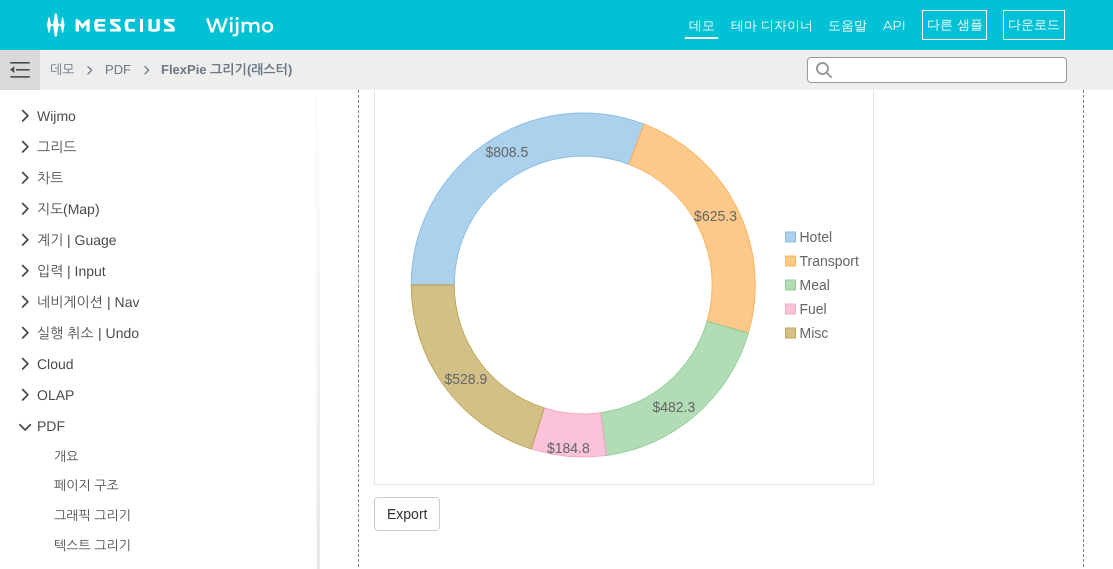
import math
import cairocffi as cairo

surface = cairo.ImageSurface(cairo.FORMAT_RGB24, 1113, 569)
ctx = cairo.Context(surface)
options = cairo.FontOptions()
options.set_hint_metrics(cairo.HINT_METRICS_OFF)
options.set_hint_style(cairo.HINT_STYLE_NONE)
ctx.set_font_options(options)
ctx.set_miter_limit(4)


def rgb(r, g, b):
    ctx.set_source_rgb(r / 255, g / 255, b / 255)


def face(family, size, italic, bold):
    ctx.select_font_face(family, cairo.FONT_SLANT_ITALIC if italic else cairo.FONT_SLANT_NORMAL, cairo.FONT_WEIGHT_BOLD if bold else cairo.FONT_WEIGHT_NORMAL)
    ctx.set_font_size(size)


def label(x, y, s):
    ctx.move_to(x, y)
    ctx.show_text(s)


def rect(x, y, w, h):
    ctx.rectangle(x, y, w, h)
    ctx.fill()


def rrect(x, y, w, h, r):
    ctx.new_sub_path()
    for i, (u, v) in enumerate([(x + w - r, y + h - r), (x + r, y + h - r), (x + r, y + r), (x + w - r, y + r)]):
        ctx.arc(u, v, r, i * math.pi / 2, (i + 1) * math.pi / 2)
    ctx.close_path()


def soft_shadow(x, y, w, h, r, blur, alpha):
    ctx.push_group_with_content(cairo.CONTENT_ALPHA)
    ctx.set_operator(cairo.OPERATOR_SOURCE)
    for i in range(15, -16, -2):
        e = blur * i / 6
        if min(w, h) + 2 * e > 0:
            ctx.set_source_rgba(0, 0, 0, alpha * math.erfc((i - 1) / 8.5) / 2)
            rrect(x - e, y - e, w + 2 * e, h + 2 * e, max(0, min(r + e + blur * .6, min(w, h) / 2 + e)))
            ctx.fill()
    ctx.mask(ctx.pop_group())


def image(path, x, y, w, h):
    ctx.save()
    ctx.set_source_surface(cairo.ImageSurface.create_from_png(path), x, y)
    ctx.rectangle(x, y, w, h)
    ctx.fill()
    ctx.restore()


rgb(255, 255, 255)
ctx.paint()
rgb(1, 193, 213)
rect(0, 0, 1113, 50)
image('image0.png', 47, 13, 128, 24)
image('image1.png', 206, 17, 68, 20)
face('WenQuanYi Zen Hei Medium', 13, 0, 0)
rgb(255, 255, 255)
label(689, 30, '데모')
rect(685, 37, 33, 2)
label(731, 30, '테마 디자이너')
label(828, 30, '도움말')
face('Montserrat', 13, 0, 0)
label(883, 30, 'API')
ctx.rectangle(922.5, 10.5, 64, 29)
ctx.set_line_width(1)
ctx.stroke()
face('WenQuanYi Zen Hei Medium', 13, 0, 0)
label(927, 29, '다른 샘플')
ctx.rectangle(1003.5, 10.5, 61, 29)
ctx.stroke()
label(1008, 29, '다운로드')
ctx.new_path()
ctx.move_to(1083.5, 70)
ctx.line_to(1083.5, 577)
rgb(128, 128, 128)
ctx.set_dash([3, 1.99])
ctx.stroke()
ctx.new_path()
ctx.move_to(358.5, 70)
ctx.line_to(358.5, 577)
ctx.stroke()
rgb(238, 238, 238)
rect(40, 50, 1073, 40)
rgb(217, 217, 217)
rect(0, 50, 40, 40)
image('image2.png', 10, 62, 20, 16)
face('NanumGothic', 13, 0, 0)
rgb(105, 118, 131)
label(50, 74, '데모')
image('image3.png', 87, 65, 6, 10)
face('Liberation Sans', 13, 0, 0)
label(105, 74, 'PDF')
image('image3.png', 144, 65, 6, 10)
face('Liberation Sans', 13, 0, 1)
label(161, 74, 'FlexPie')
face('NanumGothic', 13, 0, 1)
label(210, 74, '그리기')
face('Liberation Sans', 13, 0, 1)
label(247, 74, '(')
face('NanumGothic', 13, 0, 1)
label(251, 74, '래스터')
face('Liberation Sans', 13, 0, 1)
label(288, 74, ')')
rgb(255, 255, 255)
rrect(807.5, 57.5, 259, 25, 3.5)
ctx.fill_preserve()
rgb(153, 153, 153)
ctx.set_dash([])
ctx.stroke()
image('image4.png', 816, 62, 16, 16)
image('image5.png', 21, 109, 8, 13)
face('Liberation Sans', 14, 0, 0)
rgb(74, 74, 74)
label(37, 121, 'Wijmo')
image('image5.png', 21, 140, 8, 13)
face('NanumGothic', 14, 0, 0)
label(37, 152, '그리드')
image('image5.png', 21, 171, 8, 13)
label(37, 183, '차트')
image('image5.png', 21, 202, 8, 13)
label(37, 214, '지도')
face('Liberation Sans', 14, 0, 0)
label(63, 214, '(Map)')
image('image5.png', 21, 233, 8, 13)
face('NanumGothic', 14, 0, 0)
label(37, 245, '계기')
face('Liberation Sans', 14, 0, 0)
label(67, 245, '| Guage')
image('image5.png', 21, 264, 8, 13)
face('NanumGothic', 14, 0, 0)
label(37, 276, '입력')
face('Liberation Sans', 14, 0, 0)
label(67, 276, '| Input')
image('image5.png', 21, 295, 8, 13)
face('NanumGothic', 14, 0, 0)
label(37, 307, '네비게이션')
face('Liberation Sans', 14, 0, 0)
label(107, 307, '| Nav')
image('image5.png', 21, 326, 8, 13)
face('NanumGothic', 14, 0, 0)
label(37, 338, '실행 취소')
face('Liberation Sans', 14, 0, 0)
label(98, 338, '| Undo')
image('image5.png', 21, 357, 8, 13)
label(37, 369, 'Cloud')
image('image5.png', 21, 388, 8, 13)
label(37, 400, 'OLAP')
image('image6.png', 19, 423, 13, 8)
label(37, 431, 'PDF')
face('NanumGothic', 13, 0, 0)
label(54, 461, '개요')
label(54, 490, '페이지 구조')
label(54, 520, '그래픽 그리기')
label(54, 550, '텍스트 그리기')
ctx.save()
ctx.rectangle(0, 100, 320, 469)
ctx.clip()
rgb(196, 196, 196)
soft_shadow(318, 100, 3, 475, 0, 2, 0.5)
ctx.restore()
gradient = cairo.LinearGradient(318, 100, 319, 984)
gradient.add_color_stop_rgba(0, 1, 1, 1, 1)
gradient.add_color_stop_rgba(0.51, 0.91, 0.91, 0.91, 1)
gradient.add_color_stop_rgba(1, 1, 1, 1, 1)
ctx.set_source(gradient)
rect(317, 100, 3, 469)
image('image7.png', 374, 90, 500, 441)
surface.write_to_png('render.png')
